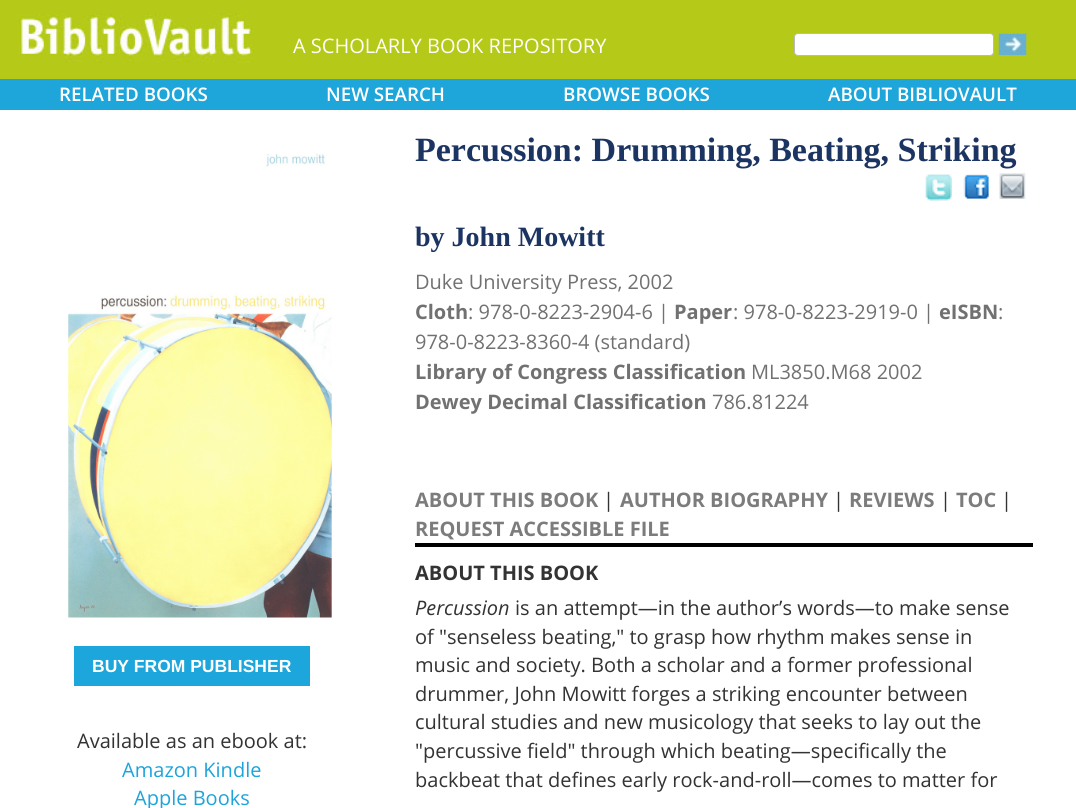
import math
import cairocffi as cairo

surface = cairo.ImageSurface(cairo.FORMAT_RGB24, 1076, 808)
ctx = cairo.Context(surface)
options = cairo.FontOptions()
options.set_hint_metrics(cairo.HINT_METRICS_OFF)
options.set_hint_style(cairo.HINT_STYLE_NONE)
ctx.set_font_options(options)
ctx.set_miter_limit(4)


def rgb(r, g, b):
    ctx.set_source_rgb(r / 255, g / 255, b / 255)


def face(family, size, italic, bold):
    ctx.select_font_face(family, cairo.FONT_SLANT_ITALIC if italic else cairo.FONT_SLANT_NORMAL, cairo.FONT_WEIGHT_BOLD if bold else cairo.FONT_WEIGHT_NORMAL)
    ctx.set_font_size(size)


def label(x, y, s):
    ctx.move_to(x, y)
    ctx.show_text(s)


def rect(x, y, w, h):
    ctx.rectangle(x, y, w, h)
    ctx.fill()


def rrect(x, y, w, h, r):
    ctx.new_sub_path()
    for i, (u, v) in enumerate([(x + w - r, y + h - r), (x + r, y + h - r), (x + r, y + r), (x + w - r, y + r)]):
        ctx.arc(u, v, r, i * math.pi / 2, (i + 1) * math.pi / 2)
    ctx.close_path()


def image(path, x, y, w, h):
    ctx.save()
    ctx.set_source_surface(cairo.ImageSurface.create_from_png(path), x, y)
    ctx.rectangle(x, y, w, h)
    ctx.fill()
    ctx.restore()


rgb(255, 255, 255)
ctx.paint()
rgb(181, 201, 24)
rect(0, 0, 1076, 79)
image('image0.png', 18, 13, 236, 50)
face('Open Sans', 20, 0, 0)
rgb(255, 255, 255)
label(293, 53, 'A SCHOLARLY BOOK REPOSITORY')
rrect(794.5, 33.5, 199, 22, 3.5)
ctx.fill_preserve()
rgb(186, 186, 186)
ctx.set_line_width(1)
ctx.stroke()
image('image1.png', 998, 33, 29, 22)
rgb(30, 166, 219)
rect(0, 79, 1076, 31)
face('Open Sans SemiBold', 18.75, 0, 0)
rgb(255, 255, 255)
label(59, 101, 'RELATED BOOKS')
label(326, 101, 'NEW SEARCH')
label(563, 101, 'BROWSE BOOKS')
label(828, 101, 'ABOUT BIBLIOVAULT')
image('image2.png', 68, 153, 264, 465)
rgb(28, 166, 219)
rect(74, 646, 236, 40)
face('Liberation Sans', 17.5, 0, 1)
rgb(255, 255, 255)
label(92, 672, 'BUY FROM PUBLISHER')
face('Open Sans', 20, 0, 0)
rgb(51, 51, 51)
label(77, 748, 'Available as an ebook at:')
rgb(28, 164, 219)
label(122, 777, 'Amazon Kindle')
label(134, 805, 'Apple Books')
face('Liberation Serif', 34, 0, 1)
rgb(28, 52, 98)
label(415, 161, 'Percussion: Drumming, Beating, Striking')
image('image3.png', 925, 174, 27, 27)
image('image4.png', 963, 173, 26, 26)
image('image5.png', 999, 173, 27, 26)
face('Liberation Serif', 28, 0, 1)
label(415, 246, 'by John Mowitt')
face('Open Sans', 20, 0, 0)
rgb(113, 113, 113)
label(415, 289, 'Duke University Press, 2002')
face('Open Sans', 20, 0, 1)
label(415, 319, 'Cloth')
face('Open Sans', 20, 0, 0)
label(468, 319, ': 978-0-8223-2904-6 |')
face('Open Sans', 20, 0, 1)
label(674, 319, 'Paper')
face('Open Sans', 20, 0, 0)
label(733, 319, ': 978-0-8223-2919-0 |')
face('Open Sans', 20, 0, 1)
label(939, 319, 'eISBN')
face('Open Sans', 20, 0, 0)
label(998, 319, ':')
label(415, 349, '978-0-8223-8360-4 (standard)')
face('Open Sans', 20, 0, 1)
label(415, 379, 'Library of Congress Classification')
face('Open Sans', 20, 0, 0)
label(751, 379, 'ML3850.M68 2002')
face('Open Sans', 20, 0, 1)
label(415, 409, 'Dewey Decimal Classification')
face('Open Sans', 20, 0, 0)
label(712, 409, '786.81224')
face('Open Sans', 20, 0, 1)
rgb(124, 124, 124)
label(415, 507, 'ABOUT THIS BOOK')
face('Open Sans', 20, 0, 0)
rgb(51, 51, 51)
label(603, 507, '|')
face('Open Sans', 20, 0, 1)
rgb(124, 124, 124)
label(620, 507, 'AUTHOR BIOGRAPHY')
face('Open Sans', 20, 0, 0)
rgb(51, 51, 51)
label(833, 507, '|')
face('Open Sans', 20, 0, 1)
rgb(124, 124, 124)
label(849, 507, 'REVIEWS')
face('Open Sans', 20, 0, 0)
rgb(51, 51, 51)
label(940, 507, '|')
face('Open Sans', 20, 0, 1)
rgb(124, 124, 124)
label(956, 507, 'TOC')
face('Open Sans', 20, 0, 0)
rgb(51, 51, 51)
label(1001, 507, '|')
face('Open Sans', 20, 0, 1)
rgb(124, 124, 124)
label(415, 536, 'REQUEST ACCESSIBLE FILE')
rgb(0, 0, 0)
rect(415, 543, 618, 4)
rgb(51, 51, 51)
label(415, 580, 'ABOUT THIS BOOK')
face('Open Sans', 20, 1, 0)
label(415, 615, 'Percussion')
face('Open Sans', 20, 0, 0)
label(515, 615, 'is an attempt—in the author’s words—to make sense')
label(415, 644, 'of "senseless beating," to grasp how rhythm makes sense in')
label(415, 672, 'music and society. Both a scholar and a former professional')
label(415, 701, 'drummer, John Mowitt forges a striking encounter between')
label(415, 729, 'cultural studies and new musicology that seeks to lay out the')
label(415, 758, '"percussive field" through which beating—specifically the')
label(415, 787, 'backbeat that defines early rock-and-roll—comes to matter for')
surface.write_to_png('render.png')
